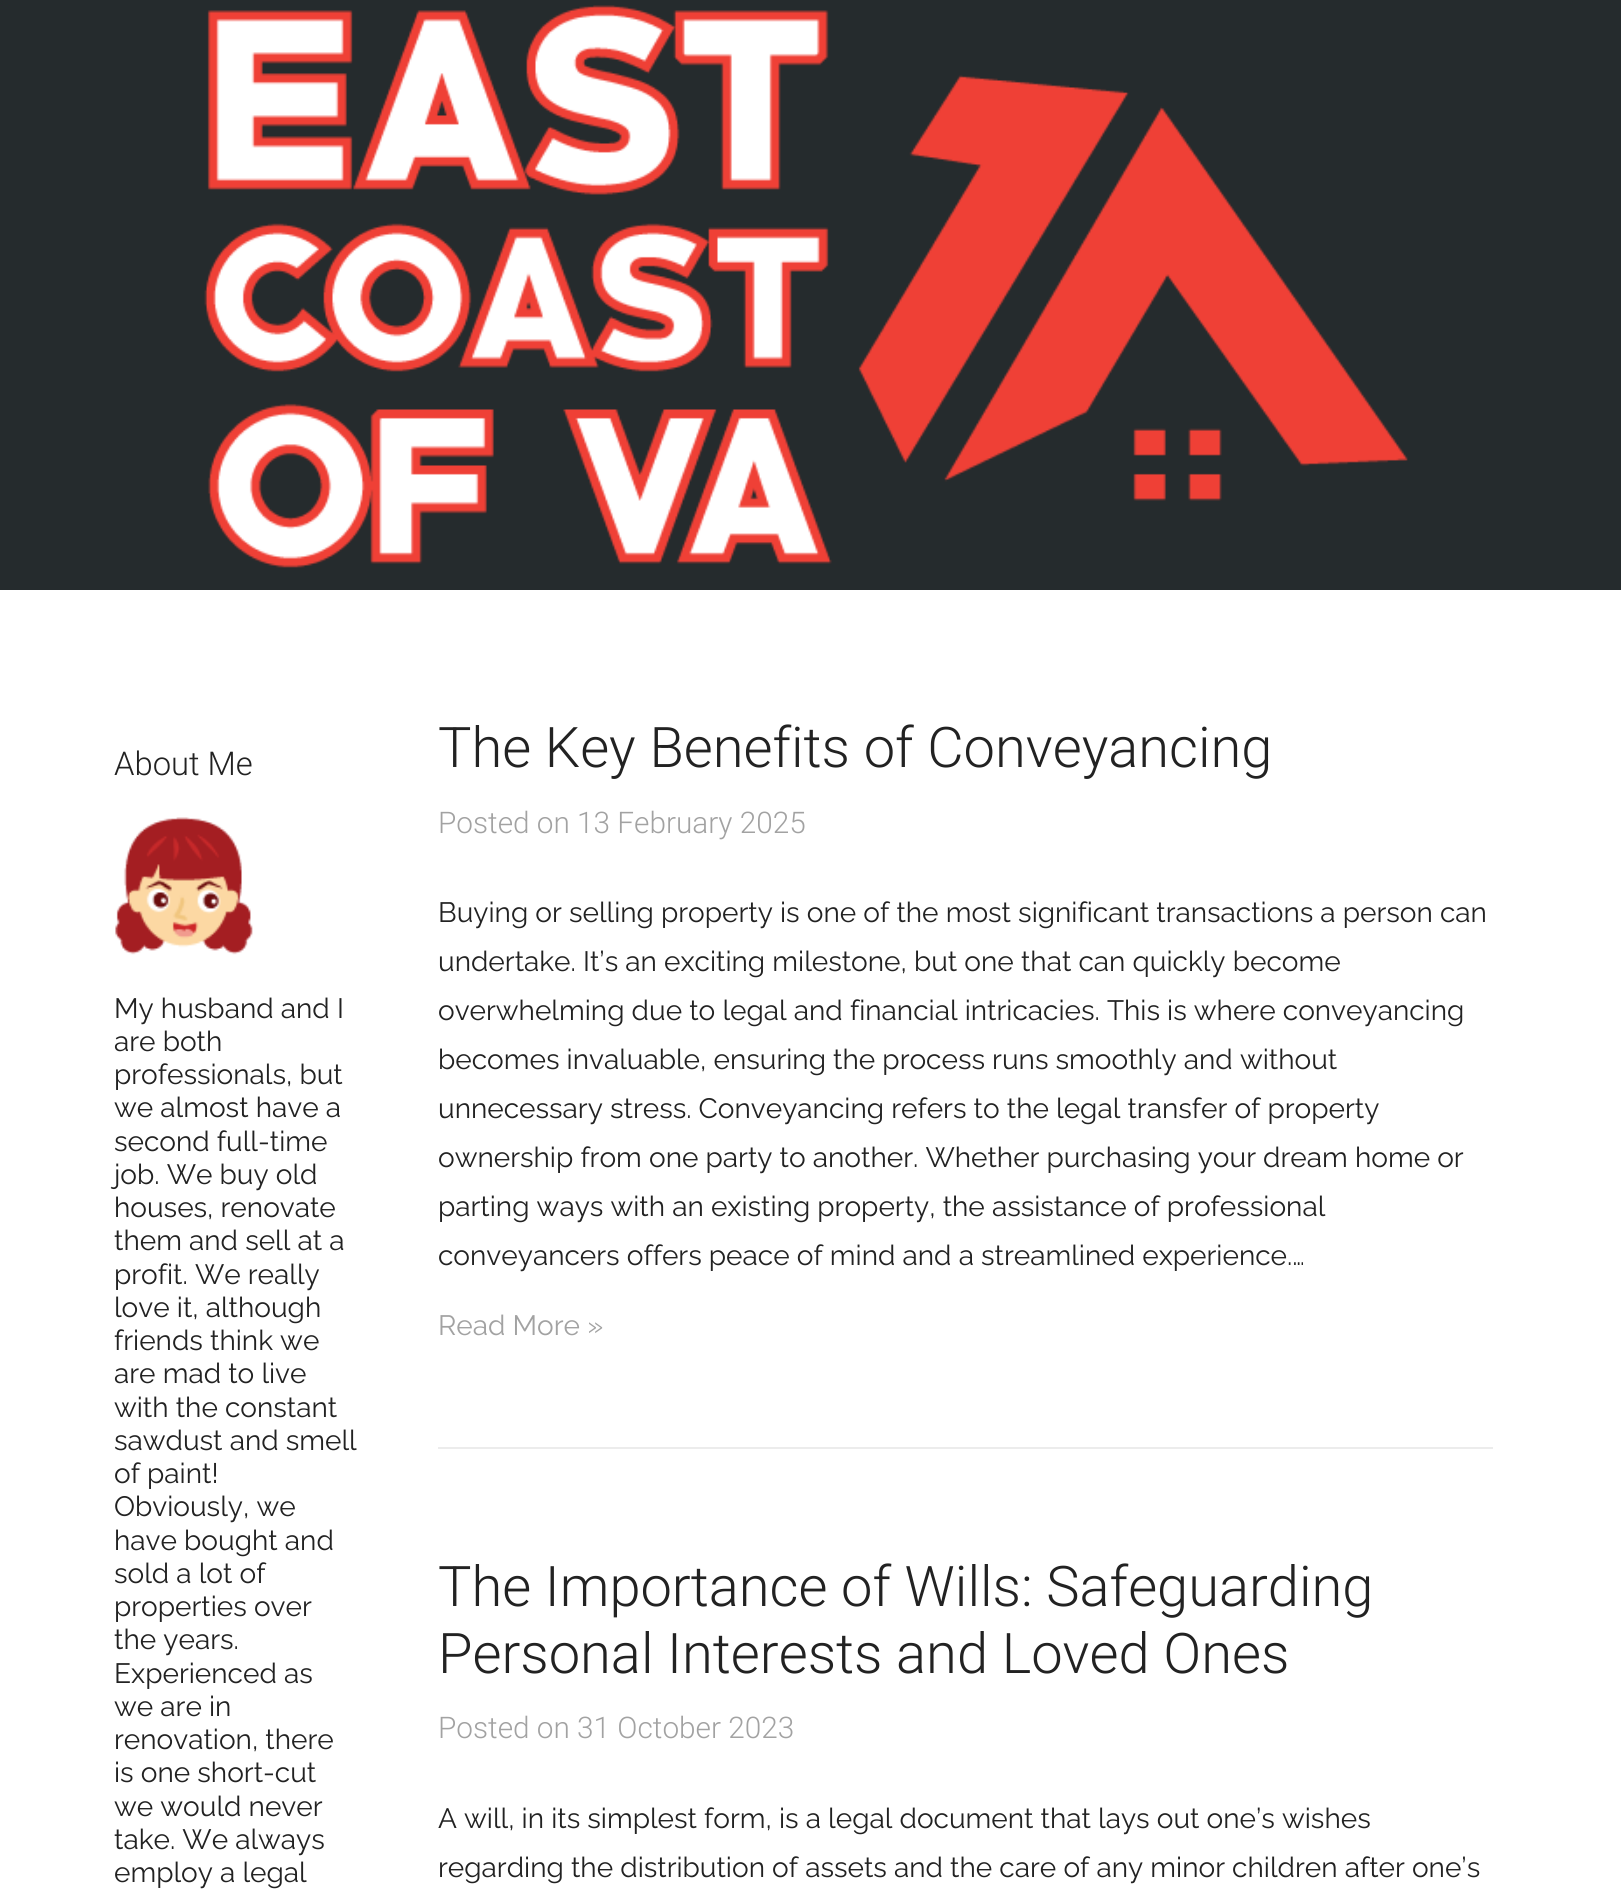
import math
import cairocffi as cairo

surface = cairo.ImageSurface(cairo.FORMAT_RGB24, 1621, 1896)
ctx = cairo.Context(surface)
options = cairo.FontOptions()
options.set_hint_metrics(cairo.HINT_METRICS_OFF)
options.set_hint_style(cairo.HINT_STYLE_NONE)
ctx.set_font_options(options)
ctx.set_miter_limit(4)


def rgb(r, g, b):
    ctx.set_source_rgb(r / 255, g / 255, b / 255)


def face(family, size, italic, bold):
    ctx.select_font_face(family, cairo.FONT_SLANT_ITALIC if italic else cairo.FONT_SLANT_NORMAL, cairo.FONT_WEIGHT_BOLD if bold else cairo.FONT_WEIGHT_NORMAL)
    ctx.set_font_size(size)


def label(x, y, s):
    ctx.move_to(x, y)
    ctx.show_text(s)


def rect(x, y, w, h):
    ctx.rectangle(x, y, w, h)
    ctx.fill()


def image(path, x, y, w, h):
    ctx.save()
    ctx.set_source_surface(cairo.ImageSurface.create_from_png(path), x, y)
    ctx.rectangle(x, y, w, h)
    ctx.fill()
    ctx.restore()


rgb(255, 255, 255)
ctx.paint()
rgb(37, 43, 45)
rect(0, 0, 1621, 590)
image('image0.png', 204, 5, 1204, 563)
face('Roboto Light', 32.75, 0, 0)
rgb(34, 34, 34)
label(114, 775, 'About Me')
image('image1.png', 115, 817, 138, 138)
face('Raleway Thin', 28, 0, 0)
label(114, 1018, 'My husband and I')
label(114, 1051, 'are both')
label(114, 1084, 'professionals, but')
label(114, 1117, 'we almost have a')
label(114, 1151, 'second full-time')
label(114, 1184, 'job. We buy old')
label(114, 1217, 'houses, renovate')
label(114, 1250, 'them and sell at a')
label(114, 1284, 'profit. We really')
label(114, 1317, 'love it, although')
label(114, 1350, 'friends think we')
label(114, 1383, 'are mad to live')
label(114, 1417, 'with the constant')
label(114, 1450, 'sawdust and smell')
label(114, 1483, 'of paint!')
label(114, 1516, 'Obviously, we')
label(114, 1550, 'have bought and')
label(114, 1583, 'sold a lot of')
label(114, 1616, 'properties over')
label(114, 1649, 'the years.')
label(114, 1683, 'Experienced as')
label(114, 1716, 'we are in')
label(114, 1749, 'renovation, there')
label(114, 1782, 'is one short-cut')
label(114, 1816, 'we would never')
label(114, 1849, 'take. We always')
label(114, 1882, 'employ a legal')
rgb(236, 236, 236)
rect(438, 1447, 1055, 2)
face('Roboto Light', 56, 0, 0)
rgb(34, 34, 34)
label(438, 767, 'The Key Benefits of Conveyancing')
face('Roboto Light', 29.75, 0, 0)
rgb(162, 162, 162)
label(438, 833, 'Posted on 13 February 2025')
face('Raleway Thin', 28, 0, 0)
rgb(34, 34, 34)
label(438, 922, 'Buying or selling property is one of the most significant transactions a person can')
label(438, 971, 'undertake. It’s an exciting milestone, but one that can quickly become')
label(438, 1020, 'overwhelming due to legal and financial intricacies. This is where conveyancing')
label(438, 1069, 'becomes invaluable, ensuring the process runs smoothly and without')
label(438, 1118, 'unnecessary stress. Conveyancing refers to the legal transfer of property')
label(438, 1167, 'ownership from one party to another. Whether purchasing your dream home or')
label(438, 1216, 'parting ways with an existing property, the assistance of professional')
label(438, 1265, 'conveyancers offers peace of mind and a streamlined experience.…')
rgb(162, 162, 162)
label(438, 1335, 'Read More »')
face('Roboto Light', 56, 0, 0)
rgb(34, 34, 34)
label(438, 1606, 'The Importance of Wills: Safeguarding')
label(438, 1673, 'Personal Interests and Loved Ones')
face('Roboto Light', 29.75, 0, 0)
rgb(162, 162, 162)
label(438, 1738, 'Posted on 31 October 2023')
face('Raleway Thin', 28, 0, 0)
rgb(34, 34, 34)
label(438, 1828, 'A will, in its simplest form, is a legal document that lays out one’s wishes')
label(438, 1877, 'regarding the distribution of assets and the care of any minor children after one’s')
surface.write_to_png('render.png')
